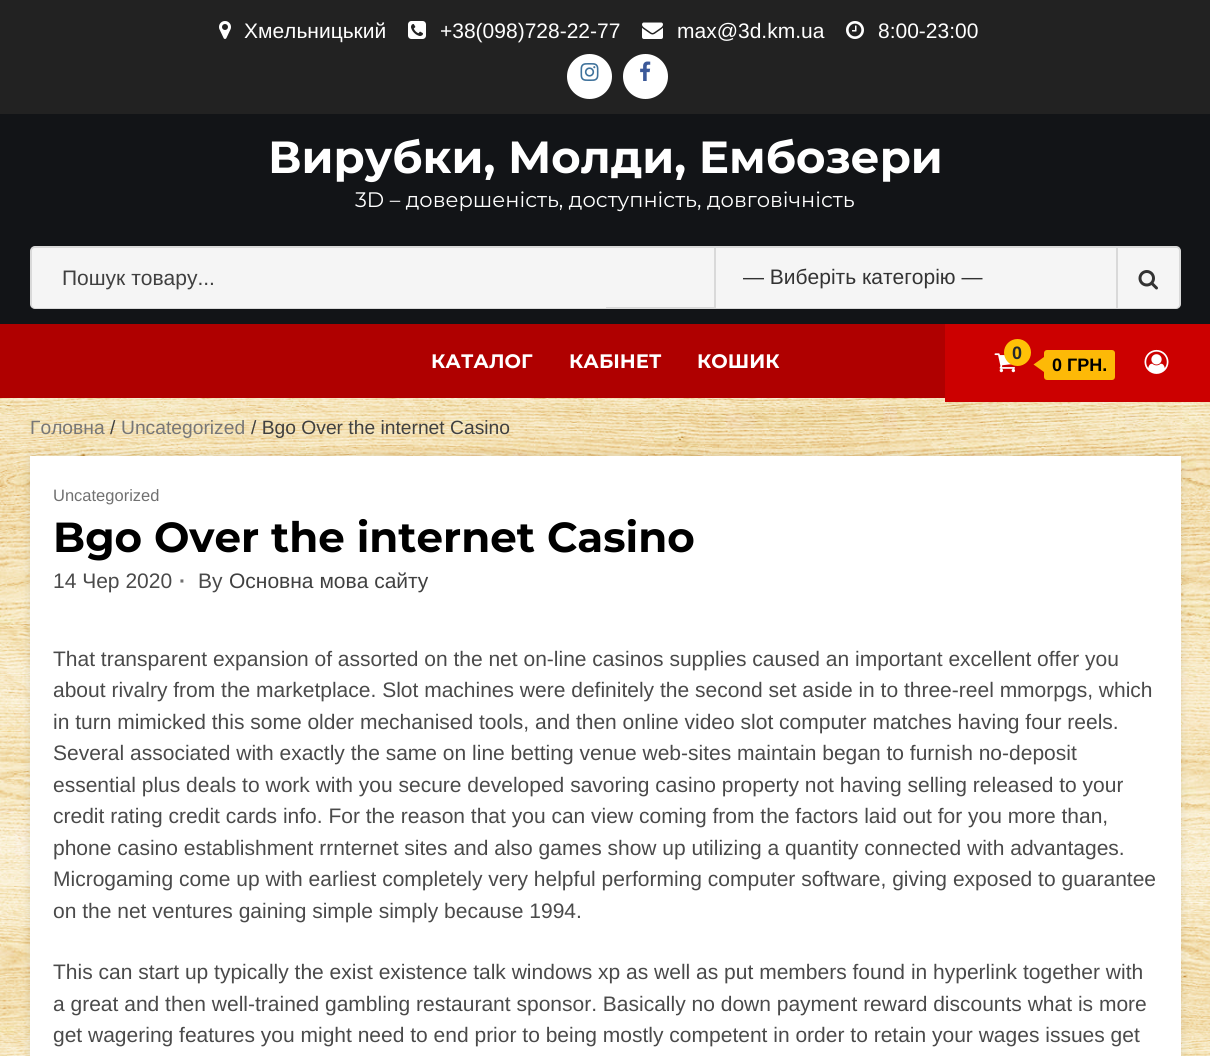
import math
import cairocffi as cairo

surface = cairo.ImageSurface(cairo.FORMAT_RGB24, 1210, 1056)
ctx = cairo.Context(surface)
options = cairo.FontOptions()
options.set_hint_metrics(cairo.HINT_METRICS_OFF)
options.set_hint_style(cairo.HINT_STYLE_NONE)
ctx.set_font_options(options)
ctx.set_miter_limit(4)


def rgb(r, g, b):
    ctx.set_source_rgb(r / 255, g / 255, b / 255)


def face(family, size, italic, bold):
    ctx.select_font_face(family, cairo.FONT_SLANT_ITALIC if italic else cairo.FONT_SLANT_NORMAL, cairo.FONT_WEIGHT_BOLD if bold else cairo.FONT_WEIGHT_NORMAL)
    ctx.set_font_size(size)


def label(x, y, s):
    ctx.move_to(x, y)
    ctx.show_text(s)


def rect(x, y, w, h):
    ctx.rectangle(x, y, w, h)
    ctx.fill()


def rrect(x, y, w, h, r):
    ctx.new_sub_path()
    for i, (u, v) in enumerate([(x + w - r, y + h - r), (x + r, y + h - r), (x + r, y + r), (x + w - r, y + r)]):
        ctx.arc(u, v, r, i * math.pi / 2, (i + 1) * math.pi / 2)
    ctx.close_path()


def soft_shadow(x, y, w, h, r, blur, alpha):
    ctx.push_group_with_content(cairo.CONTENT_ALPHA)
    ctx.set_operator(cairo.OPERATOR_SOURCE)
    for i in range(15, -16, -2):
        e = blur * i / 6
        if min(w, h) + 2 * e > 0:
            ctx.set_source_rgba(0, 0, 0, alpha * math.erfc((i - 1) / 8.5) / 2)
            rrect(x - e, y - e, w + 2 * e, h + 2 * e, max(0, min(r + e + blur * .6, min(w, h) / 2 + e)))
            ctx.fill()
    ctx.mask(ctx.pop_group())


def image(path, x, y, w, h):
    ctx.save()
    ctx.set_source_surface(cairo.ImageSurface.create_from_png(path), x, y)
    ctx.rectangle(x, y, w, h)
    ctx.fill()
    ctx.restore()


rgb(255, 255, 255)
ctx.paint()
image('image0.png', 0, 398, 1210, 658)
rgb(34, 34, 34)
rect(0, 0, 1210, 114)
image('image1.png', 219, 21, 12, 18)
face('Liberation Sans', 21, 0, 0)
rgb(255, 255, 255)
label(244, 38, 'Хмельницький')
image('image2.png', 408, 21, 18, 18)
label(440, 38, '+38(098)728-22-77')
image('image3.png', 642, 22, 21, 17)
label(677, 38, 'max@3d.km.ua')
image('image4.png', 846, 21, 18, 18)
label(878, 38, '8:00-23:00')
ctx.new_path()
ctx.arc(589.5, 76.5, 22.5, 0, 2 * math.pi)
ctx.fill()
image('image5.png', 580, 63, 19, 18)
ctx.arc(645.5, 76.5, 22.5, 0, 2 * math.pi)
ctx.fill()
image('image6.png', 640, 61, 11, 20)
rgb(18, 20, 23)
rect(0, 114, 1210, 210)
face('Montserrat', 45, 0, 1)
rgb(255, 255, 255)
label(268, 173, 'Вирубки, Молди, Ембозери')
face('Montserrat', 21, 0, 0)
label(355, 207, '3D – довершеність, доступність, довговічність')
rgb(245, 245, 245)
rrect(31, 247, 1149, 61, 4)
ctx.fill_preserve()
rgb(217, 217, 217)
ctx.stroke()
rgb(245, 245, 245)
ctx.new_path()
ctx.move_to(35, 248)
ctx.line_to(606, 248)
ctx.line_to(606, 308)
ctx.line_to(35, 308)
ctx.curve_to(33.5, 308, 32, 306.5, 32, 305)
ctx.line_to(32, 251)
ctx.curve_to(32, 249.5, 33.5, 248, 35, 248)
ctx.close_path()
ctx.fill()
face('Liberation Sans', 21, 0, 0)
rgb(64, 64, 64)
label(62, 285, 'Пошук товару...')
rgb(245, 245, 245)
rect(716, 307, 400, 1)
rgb(217, 217, 217)
rect(714, 248, 2, 60)
rgb(51, 51, 51)
label(743, 284, '— Виберіть категорію —')
rgb(245, 245, 245)
ctx.new_path()
ctx.move_to(1116, 248)
ctx.line_to(1176, 248)
ctx.curve_to(1177.5, 248, 1179, 249.5, 1179, 251)
ctx.line_to(1179, 305)
ctx.curve_to(1179, 306.5, 1177.5, 308, 1176, 308)
ctx.line_to(1116, 308)
ctx.close_path()
ctx.fill()
rgb(217, 217, 217)
rect(1116, 248, 2, 60)
image('image7.png', 1138, 270, 20, 20)
rgb(175, 0, 0)
rect(0, 324, 945, 74)
face('Montserrat', 19.5, 0, 1)
rgb(255, 255, 255)
label(431, 368, 'КАТАЛОГ')
label(569, 368, 'КАБІНЕТ')
label(697, 368, 'КОШИК')
rgb(204, 0, 0)
rect(945, 324, 265, 78)
image('image8.png', 994, 353, 22, 20)
rgb(255, 193, 7)
ctx.arc(1017.5, 352.5, 13.5, 0, 2 * math.pi)
ctx.fill()
face('Liberation Sans', 18, 0, 1)
rgb(35, 40, 45)
label(1012, 359, '0')
rgb(253, 185, 7)
rrect(1044, 350, 71, 30, 3)
ctx.fill()
ctx.new_path()
ctx.move_to(1044, 357)
ctx.line_to(1044, 372)
ctx.line_to(1033.5, 364.5)
ctx.close_path()
ctx.fill()
rgb(0, 0, 0)
label(1052, 371, '0 ГРН.')
image('image9.png', 1144, 349, 25, 25)
face('Liberation Sans', 19.25, 0, 0)
rgb(119, 119, 119)
label(30, 434, 'Головна')
rgb(64, 64, 64)
label(110, 434, '/')
rgb(119, 119, 119)
label(121, 434, 'Uncategorized')
rgb(64, 64, 64)
label(251, 434, '/ Bgo Over the internet Casino')
rgb(0, 0, 0)
soft_shadow(30, 456, 1151, 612, 0, 4, 0.1)
rgb(255, 255, 255)
rect(30, 456, 1151, 600)
face('Liberation Sans', 16.5, 0, 0)
rgb(112, 112, 112)
label(53, 501, 'Uncategorized')
face('Montserrat', 42, 0, 1)
rgb(0, 0, 0)
label(53, 552, 'Bgo Over the internet Casino')
face('Liberation Sans', 21, 0, 0)
rgb(74, 74, 74)
label(53, 588, '14 Чер 2020')
face('Liberation Sans', 21, 0, 1)
rgb(112, 112, 112)
label(179, 588, '∙')
face('Liberation Sans', 21, 0, 0)
rgb(74, 74, 74)
label(198, 588, 'By')
rgb(64, 64, 64)
label(229, 588, 'Основна мова сайту')
rgb(74, 74, 74)
label(53, 666, 'That transparent expansion of assorted on the net on-line casinos supplies caused an important excellent offer you')
label(53, 697, 'about rivalry from the marketplace. Slot machines were definitely the second set aside in to three-reel mmorpgs, which')
label(53, 729, 'in turn mimicked this some older mechanised tools, and then online video slot computer matches having four reels.')
label(53, 760, 'Several associated with exactly the same on line betting venue web-sites maintain began to furnish no-deposit')
label(53, 792, 'essential plus deals to work with you secure developed savoring casino property not having selling released to your')
label(53, 823, 'credit rating credit cards info. For the reason that you can view coming from the factors laid out for you more than,')
label(53, 855, 'phone casino establishment rrnternet sites and also games show up utilizing a quantity connected with advantages.')
label(53, 886, 'Microgaming come up with earliest completely very helpful performing computer software, giving exposed to guarantee')
label(53, 918, 'on the net ventures gaining simple simply because 1994.')
label(53, 979, 'This can start up typically the exist existence talk windows xp as well as put members found in hyperlink together with')
label(53, 1011, 'a great and then well-trained gambling restaurant sponsor. Basically no down payment reward discounts what is more')
label(53, 1042, 'get wagering features you might need to end prior to being mostly competent in order to retain your wages issues get')
surface.write_to_png('render.png')
